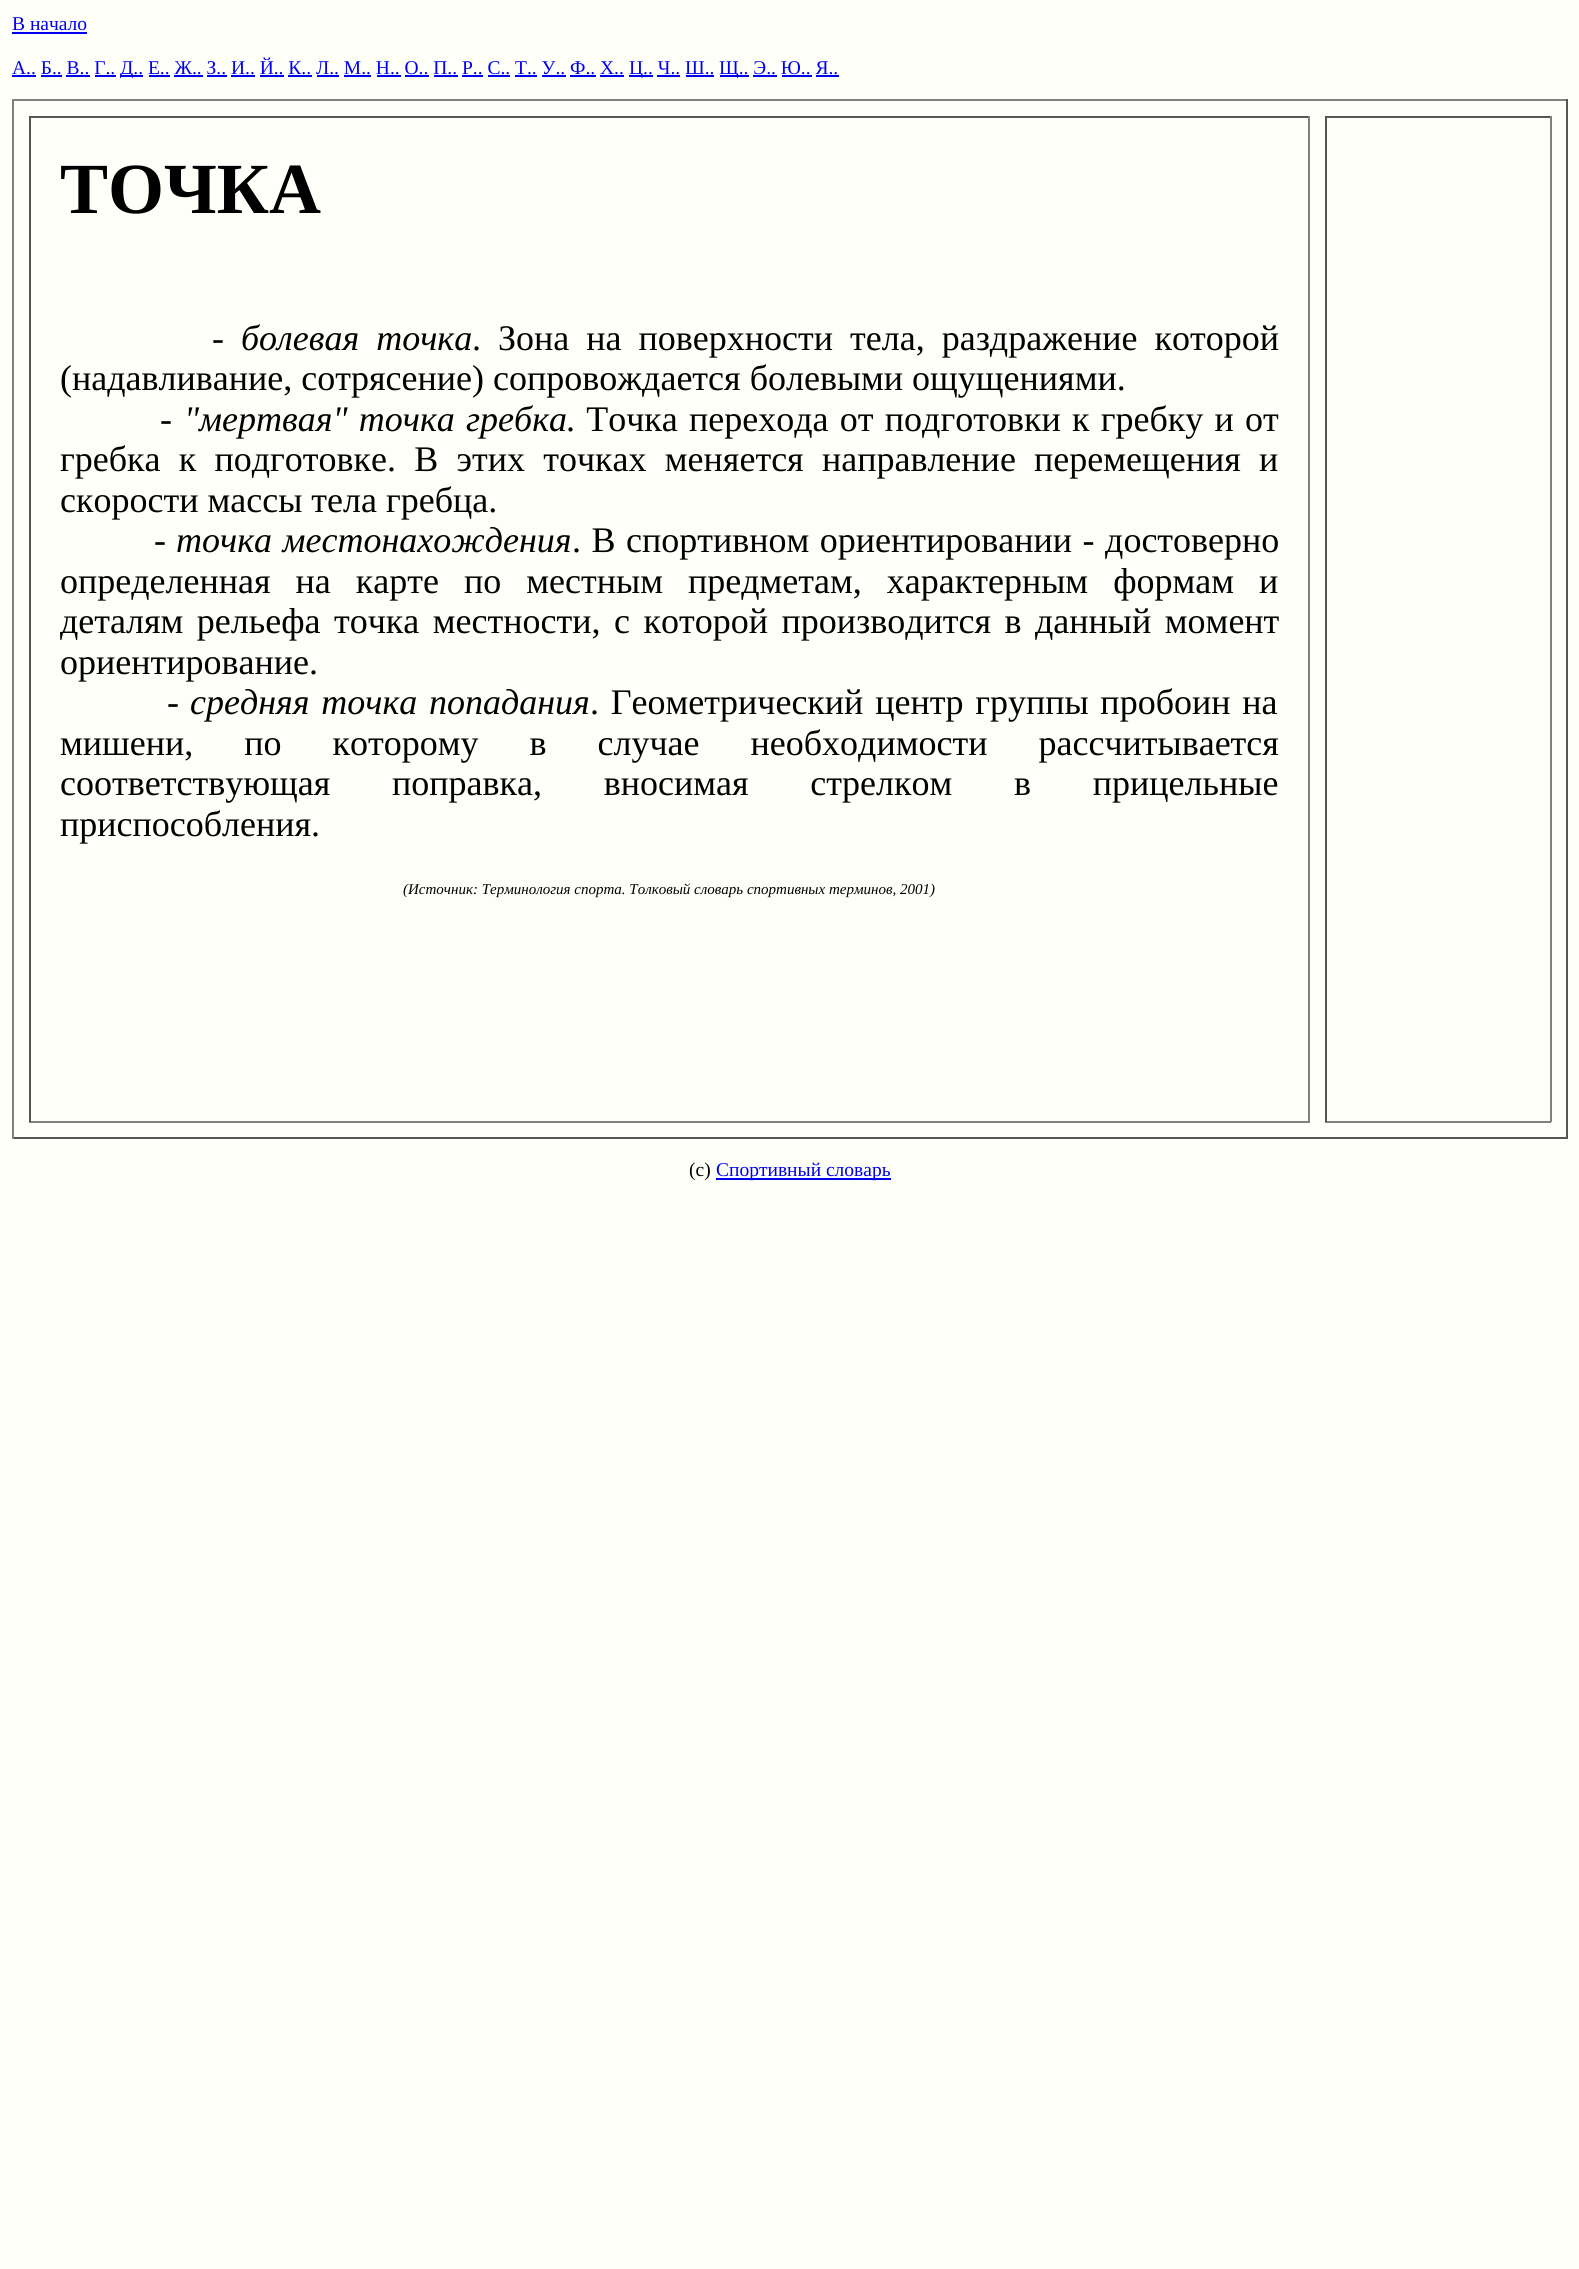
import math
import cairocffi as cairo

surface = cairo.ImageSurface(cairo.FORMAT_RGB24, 1579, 2269)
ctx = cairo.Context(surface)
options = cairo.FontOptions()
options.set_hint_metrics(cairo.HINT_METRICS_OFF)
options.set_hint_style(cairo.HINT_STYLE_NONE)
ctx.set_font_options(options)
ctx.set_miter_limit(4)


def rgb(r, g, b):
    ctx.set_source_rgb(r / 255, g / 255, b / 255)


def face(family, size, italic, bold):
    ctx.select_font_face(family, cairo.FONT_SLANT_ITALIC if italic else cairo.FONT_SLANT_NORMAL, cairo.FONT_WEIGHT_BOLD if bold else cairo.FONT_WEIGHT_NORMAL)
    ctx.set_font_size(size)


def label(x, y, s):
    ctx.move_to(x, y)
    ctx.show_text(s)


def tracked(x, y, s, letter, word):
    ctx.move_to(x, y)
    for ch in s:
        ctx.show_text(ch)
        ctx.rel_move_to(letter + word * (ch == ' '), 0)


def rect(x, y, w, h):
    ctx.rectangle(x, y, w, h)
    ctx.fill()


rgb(255, 255, 250)
ctx.paint()
face('Liberation Serif', 19.5, 0, 0)
rgb(0, 0, 238)
label(12, 30, 'В начало')
rect(12, 32, 75, 2)
label(12, 74, 'А.. Б.. В.. Г..')
rect(12, 75, 24, 2)
rect(120, 75, 23, 2)
label(120, 74, 'Д.. Е.. Ж.. З.. И.. Й.. К.. Л.. М.. Н.. О.. П.. Р.. С.. Т.. У.. Ф.. Х..')
rect(629, 75, 24, 2)
label(629, 74, 'Ц.. Ч.. Ш..')
rect(720, 75, 29, 2)
label(719, 74, 'Щ.. Э.. Ю.. Я..')
rect(41, 75, 21, 2)
rect(66, 75, 24, 2)
rect(95, 75, 21, 2)
rect(149, 75, 21, 2)
rect(174, 75, 29, 2)
rect(207, 75, 20, 2)
rect(231, 75, 24, 2)
rect(260, 75, 24, 2)
rect(288, 75, 24, 2)
rect(317, 75, 22, 2)
rect(344, 75, 27, 2)
rect(377, 75, 24, 2)
rect(405, 75, 24, 2)
rect(434, 75, 24, 2)
rect(462, 75, 21, 2)
rect(488, 75, 22, 2)
rect(515, 75, 22, 2)
rect(542, 75, 24, 2)
rect(570, 75, 26, 2)
rect(600, 75, 24, 2)
rect(657, 75, 23, 2)
rect(686, 75, 28, 2)
rect(753, 75, 24, 2)
rect(782, 75, 30, 2)
rect(816, 75, 23, 2)
rgb(128, 128, 128)
rect(12, 99, 1556, 2)
rgb(85, 85, 85)
rect(1566, 99, 2, 1040)
rect(12, 1137, 1556, 2)
rgb(128, 128, 128)
rect(12, 99, 2, 1040)
rgb(85, 85, 85)
rect(29, 116, 1281, 2)
rgb(128, 128, 128)
rect(1308, 116, 2, 1006)
rect(29, 1121, 1281, 2)
rgb(85, 85, 85)
rect(29, 116, 2, 1006)
face('Liberation Serif', 72, 0, 1)
rgb(0, 0, 0)
label(60, 213, 'ТОЧКА')
face('Liberation Serif', 36, 0, 0)
label(212, 350, '-')
face('Liberation Serif', 36, 1, 0)
tracked(241, 350, 'болевая точка', 0, 8)
face('Liberation Serif', 36, 0, 0)
tracked(472, 350, '. Зона на поверхности тела, раздражение которой', 0, 8)
label(60, 390, '(надавливание, сотрясение) сопровождается болевыми ощущениями.')
label(160, 431, '-')
face('Liberation Serif', 36, 1, 0)
tracked(184, 431, '"мертвая" точка гребка', 0, 2.25)
face('Liberation Serif', 36, 0, 0)
tracked(566, 431, '. Точка перехода от подготовки к гребку и от', 0, 2.25)
tracked(60, 471, 'гребка к подготовке. В этих точках меняется направление перемещения и', 0, 9.25)
label(60, 512, 'скорости массы тела гребца.')
label(154, 552, '-')
face('Liberation Serif', 36, 1, 0)
tracked(176, 552, 'точка местонахождения', 0, 1.5)
face('Liberation Serif', 36, 0, 0)
tracked(572, 552, '. В спортивном ориентировании - достоверно', 0, 1.5)
tracked(60, 593, 'определенная на карте по местным предметам, характерным формам и', 0, 16)
tracked(60, 633, 'деталям рельефа точка местности, с которой производится в данный момент', 0, 4.5)
label(60, 674, 'ориентирование.')
label(167, 714, '-')
face('Liberation Serif', 36, 1, 0)
tracked(190, 714, 'средняя точка попадания', 0, 2.75)
face('Liberation Serif', 36, 0, 0)
tracked(590, 714, '. Геометрический центр группы пробоин на', 0, 2.75)
tracked(60, 755, 'мишени, по которому в случае необходимости рассчитывается', 0, 42)
tracked(60, 795, 'соответствующая поправка, вносимая стрелком в прицельные', 0, 52.75)
label(60, 836, 'приспособления.')
face('Liberation Serif', 15, 1, 0)
label(403, 894, '(Источник: Терминология спорта. Толковый словарь спортивных терминов, 2001)')
rgb(85, 85, 85)
rect(1325, 116, 226, 2)
rgb(128, 128, 128)
rect(1550, 116, 2, 1006)
rect(1325, 1121, 226, 2)
rgb(85, 85, 85)
rect(1325, 116, 2, 1006)
face('Liberation Serif', 19.5, 0, 0)
rgb(0, 0, 0)
label(689, 1176, '(c)')
rgb(0, 0, 238)
rect(716, 1178, 175, 2)
label(716, 1176, 'Спортивный словарь')
surface.write_to_png('render.png')
